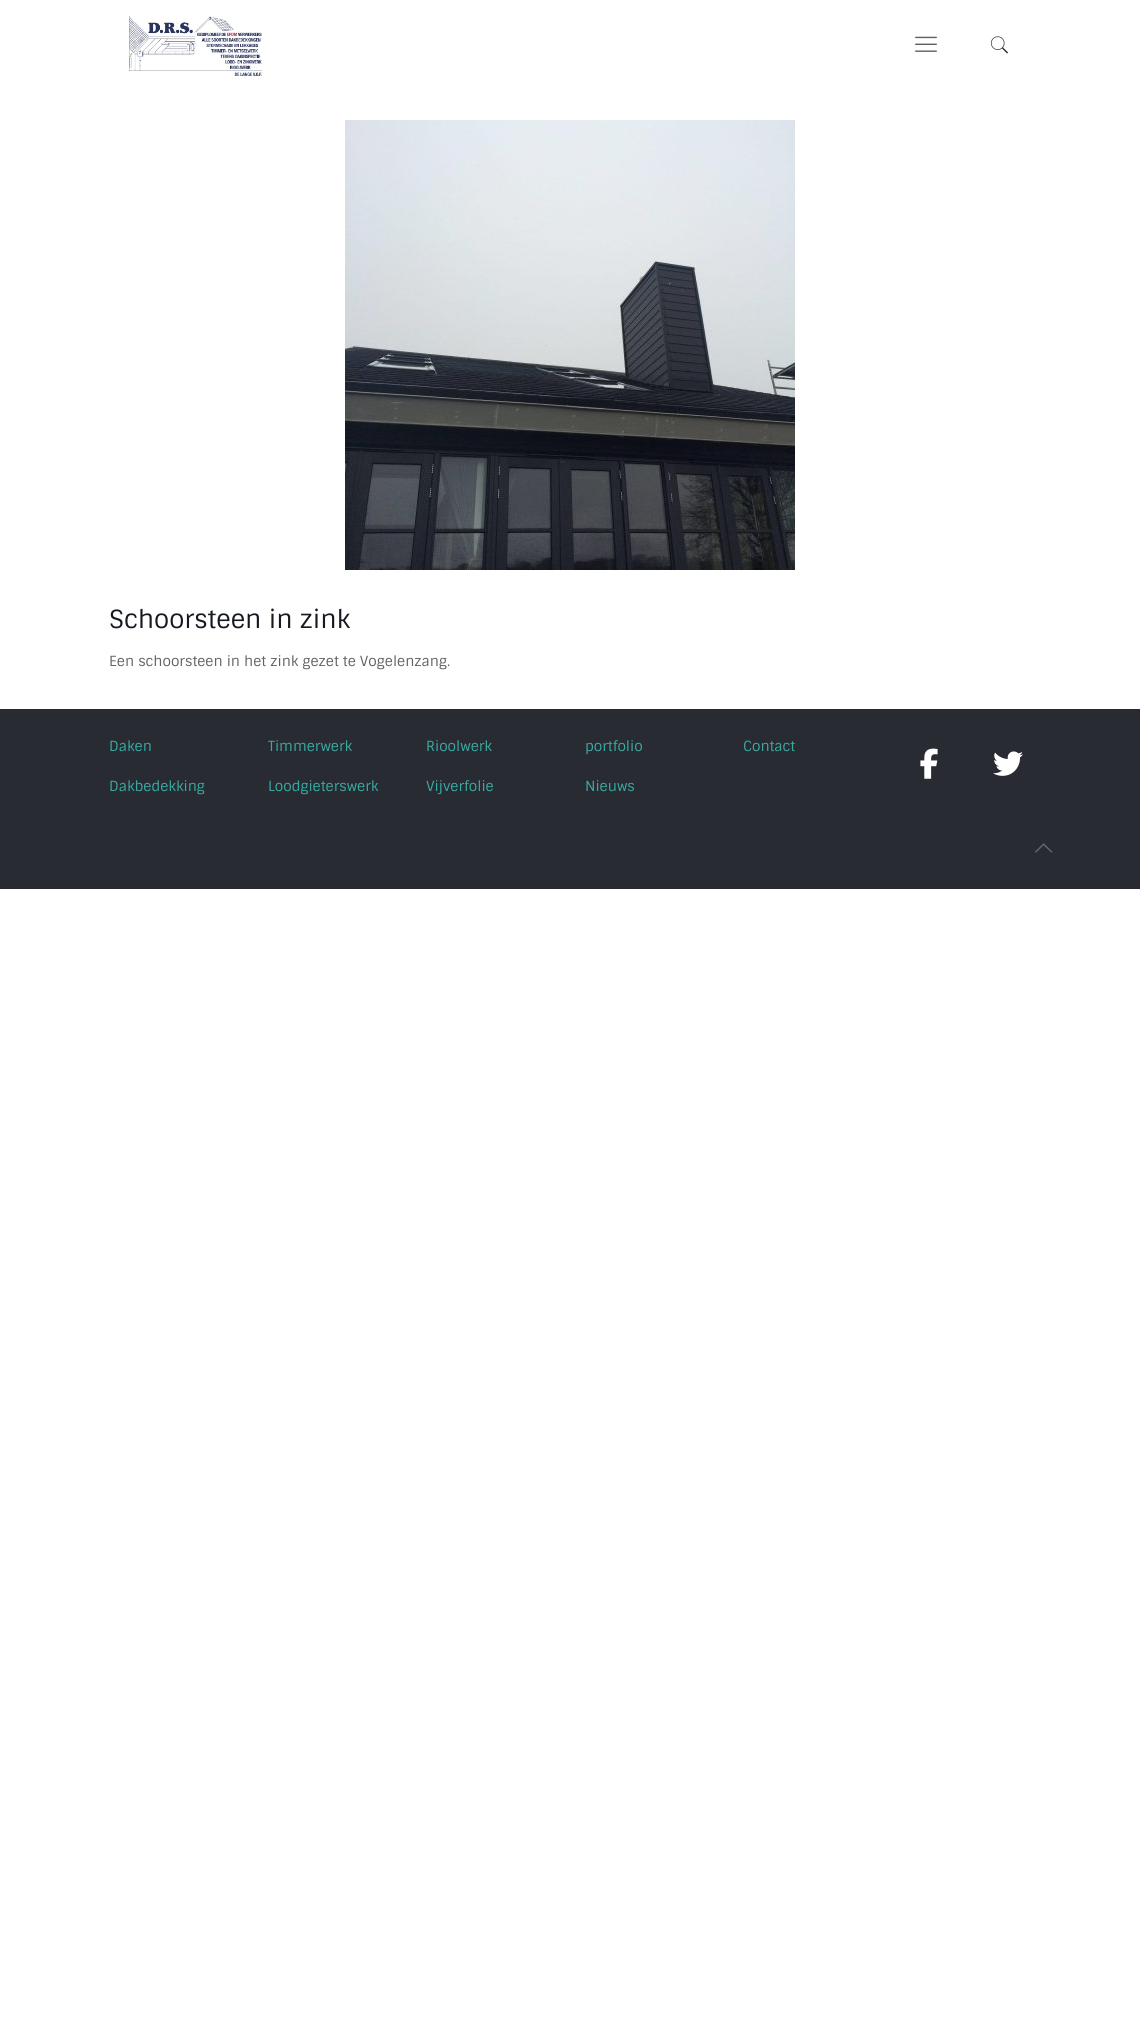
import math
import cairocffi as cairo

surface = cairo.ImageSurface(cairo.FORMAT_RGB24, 1140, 2030)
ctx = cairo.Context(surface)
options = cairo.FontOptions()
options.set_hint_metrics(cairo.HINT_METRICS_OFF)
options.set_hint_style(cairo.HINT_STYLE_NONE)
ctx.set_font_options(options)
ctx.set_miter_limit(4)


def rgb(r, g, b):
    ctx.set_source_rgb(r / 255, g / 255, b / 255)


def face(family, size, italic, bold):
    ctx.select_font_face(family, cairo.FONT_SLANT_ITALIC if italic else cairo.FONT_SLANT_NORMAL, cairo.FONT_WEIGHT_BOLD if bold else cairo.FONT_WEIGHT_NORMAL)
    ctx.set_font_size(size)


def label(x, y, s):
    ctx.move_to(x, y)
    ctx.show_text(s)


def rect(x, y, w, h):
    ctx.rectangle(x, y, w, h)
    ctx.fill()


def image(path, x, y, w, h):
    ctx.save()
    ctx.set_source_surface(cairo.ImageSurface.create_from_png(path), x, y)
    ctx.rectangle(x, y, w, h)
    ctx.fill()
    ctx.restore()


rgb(255, 255, 255)
ctx.paint()
image('image0.png', 129, 16, 133, 60)
image('image1.png', 915, 36, 22, 16)
image('image2.png', 990, 36, 19, 18)
image('image3.png', 345, 120, 450, 450)
face('Sintony', 25, 0, 0)
rgb(22, 25, 34)
label(109, 628, 'Schoorsteen in zink')
face('Sintony', 14, 0, 0)
rgb(98, 98, 98)
label(109, 666, 'Een schoorsteen in het zink gezet te Vogelenzang.')
rgb(41, 43, 51)
rect(0, 709, 1140, 180)
rgb(57, 171, 163)
label(109, 751, 'Daken')
label(109, 791, 'Dakbedekking')
label(268, 751, 'Timmerwerk')
label(268, 791, 'Loodgieterswerk')
label(426, 751, 'Rioolwerk')
label(426, 791, 'Vijverfolie')
label(585, 751, 'portfolio')
label(585, 791, 'Nieuws')
label(743, 751, 'Contact')
image('image4.png', 920, 748, 18, 31)
image('image5.png', 993, 751, 30, 25)
image('image6.png', 1035, 843, 18, 10)
surface.write_to_png('render.png')
